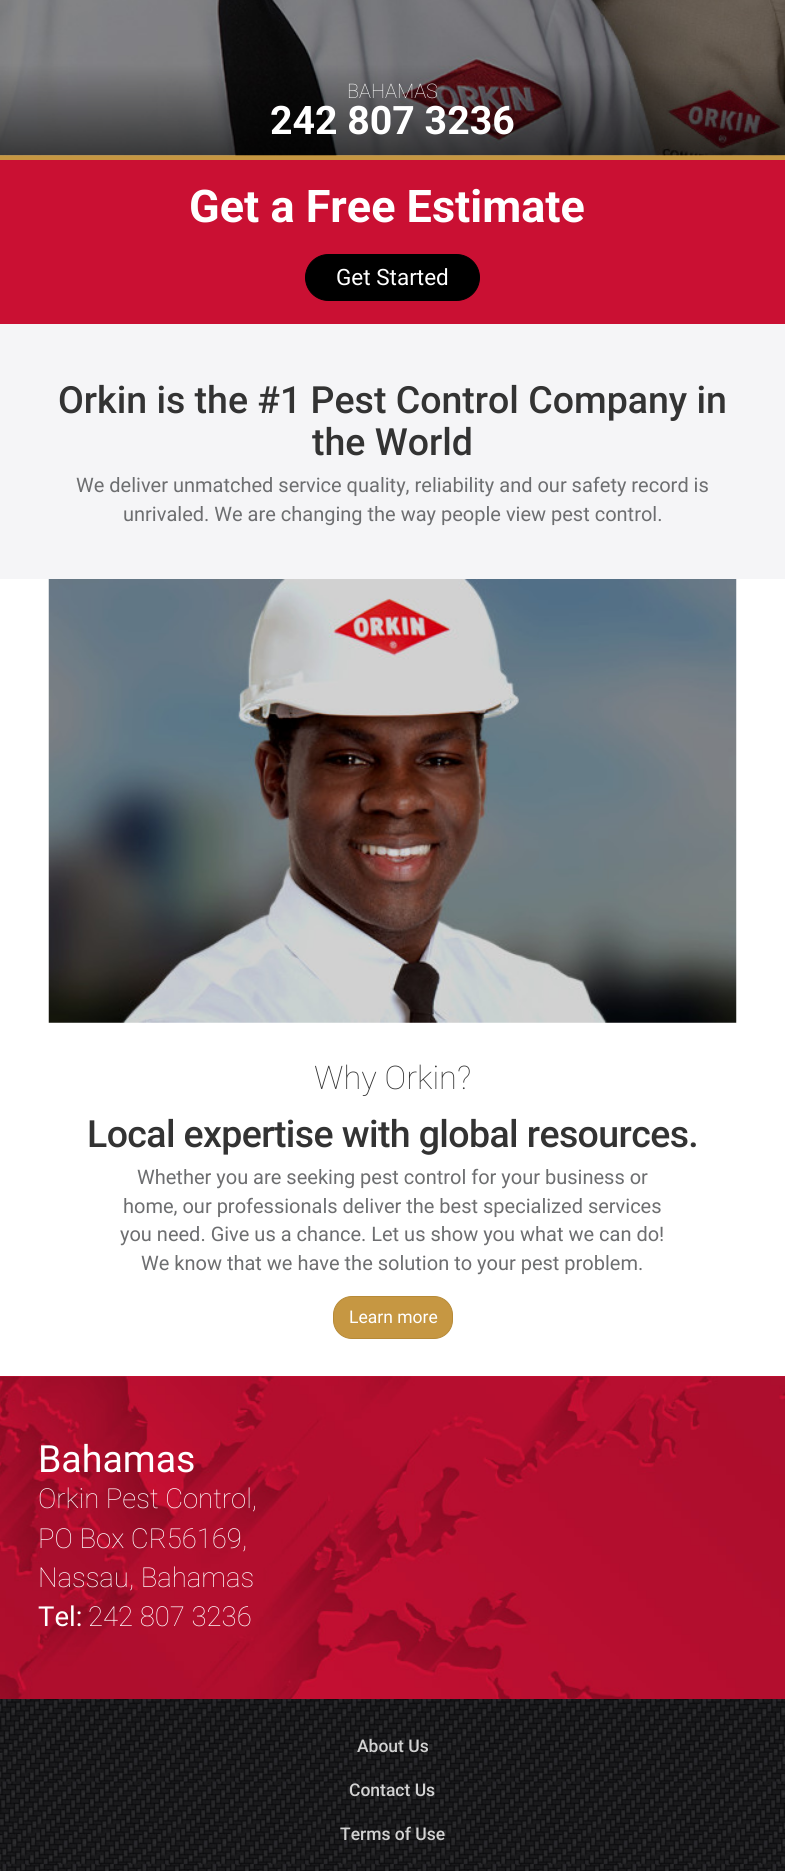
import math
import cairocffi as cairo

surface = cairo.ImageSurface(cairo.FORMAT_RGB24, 785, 1871)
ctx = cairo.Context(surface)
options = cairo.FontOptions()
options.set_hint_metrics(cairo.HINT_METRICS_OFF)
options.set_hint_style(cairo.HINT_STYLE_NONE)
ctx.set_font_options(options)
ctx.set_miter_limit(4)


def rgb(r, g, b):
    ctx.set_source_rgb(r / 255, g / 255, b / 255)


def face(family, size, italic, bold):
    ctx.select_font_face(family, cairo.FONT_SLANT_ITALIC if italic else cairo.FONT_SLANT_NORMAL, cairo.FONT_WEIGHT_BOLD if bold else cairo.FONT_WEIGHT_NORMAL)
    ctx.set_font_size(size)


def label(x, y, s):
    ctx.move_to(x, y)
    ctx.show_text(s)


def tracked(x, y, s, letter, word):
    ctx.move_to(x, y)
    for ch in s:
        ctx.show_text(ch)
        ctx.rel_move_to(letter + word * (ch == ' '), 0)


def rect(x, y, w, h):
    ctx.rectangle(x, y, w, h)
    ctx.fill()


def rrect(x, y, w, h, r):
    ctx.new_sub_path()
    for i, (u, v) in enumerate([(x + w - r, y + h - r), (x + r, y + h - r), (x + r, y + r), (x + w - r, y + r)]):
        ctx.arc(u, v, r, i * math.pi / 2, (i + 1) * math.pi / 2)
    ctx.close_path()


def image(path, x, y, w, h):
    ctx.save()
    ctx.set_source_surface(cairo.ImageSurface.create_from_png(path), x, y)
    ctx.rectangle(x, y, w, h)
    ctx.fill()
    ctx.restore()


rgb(255, 255, 255)
ctx.paint()
rgb(198, 151, 66)
rect(0, 155, 785, 5)
image('image0.png', 0, 0, 785, 156)
face('Roboto Thin', 20, 0, 0)
rgb(255, 255, 255)
label(347, 98, 'BAHAMAS')
face('Roboto', 39.25, 0, 1)
label(270, 134, '242 807 3236')
rgb(202, 16, 51)
rect(0, 160, 785, 164)
face('Roboto', 45, 0, 1)
rgb(255, 255, 255)
label(189, 222, 'Get a Free Estimate')
rgb(0, 0, 0)
rrect(305.5, 254.5, 174, 46, 23)
ctx.fill_preserve()
ctx.set_line_width(1)
ctx.stroke()
face('Roboto', 22.5, 0, 0)
rgb(255, 255, 255)
label(336, 285, 'Get Started')
rgb(245, 245, 247)
rect(0, 324, 785, 255)
face('Roboto Medium', 37.5, 0, 0)
rgb(51, 51, 51)
label(58, 413, 'Orkin is the #1 Pest Control Company in')
label(312, 455, 'the World')
face('Roboto', 20, 0, 0)
rgb(109, 110, 112)
label(76, 492, 'We deliver unmatched service quality, reliability and our safety record is')
label(123, 521, 'unrivaled. We are changing the way people view pest control.')
image('image1.png', 48, 579, 689, 444)
face('Roboto Thin', 32.5, 0, 0)
rgb(51, 51, 51)
label(314, 1089, 'Why Orkin?')
face('Roboto Medium', 37.5, 0, 0)
tracked(87, 1147, 'Local expertise with global resources.', -0.6, 0)
face('Roboto', 20, 0, 0)
rgb(109, 110, 112)
label(137, 1184, 'Whether you are seeking pest control for your business or')
label(123, 1213, 'home, our professionals deliver the best specialized services')
label(120, 1241, 'you need. Give us a chance. Let us show you what we can do!')
label(141, 1270, 'We know that we have the solution to your pest problem.')
rgb(198, 151, 66)
rrect(333.5, 1296.5, 119, 42, 18.5)
ctx.fill_preserve()
rgb(183, 138, 55)
ctx.stroke()
face('Roboto', 17.5, 0, 0)
rgb(255, 255, 255)
label(349, 1323, 'Learn more')
rgb(202, 16, 51)
rect(0, 1376, 785, 1)
image('image2.png', 0, 1376, 785, 323)
face('Roboto', 37.5, 0, 0)
rgb(255, 255, 255)
label(38, 1472, 'Bahamas')
face('Roboto Thin', 27.5, 0, 0)
label(38, 1508, 'Orkin Pest Control,')
label(38, 1548, 'PO Box CR56169,')
label(38, 1587, 'Nassau, Bahamas')
face('Roboto', 27.5, 0, 0)
label(38, 1626, 'Tel:')
face('Roboto Thin', 27.5, 0, 0)
label(88, 1626, '242 807 3236')
image('image3.png', 0, 1699, 785, 172)
face('Roboto Medium', 17.5, 0, 0)
rgb(210, 210, 210)
label(357, 1752, 'About Us')
label(349, 1796, 'Contact Us')
label(340, 1840, 'Terms of Use')
surface.write_to_png('render.png')
